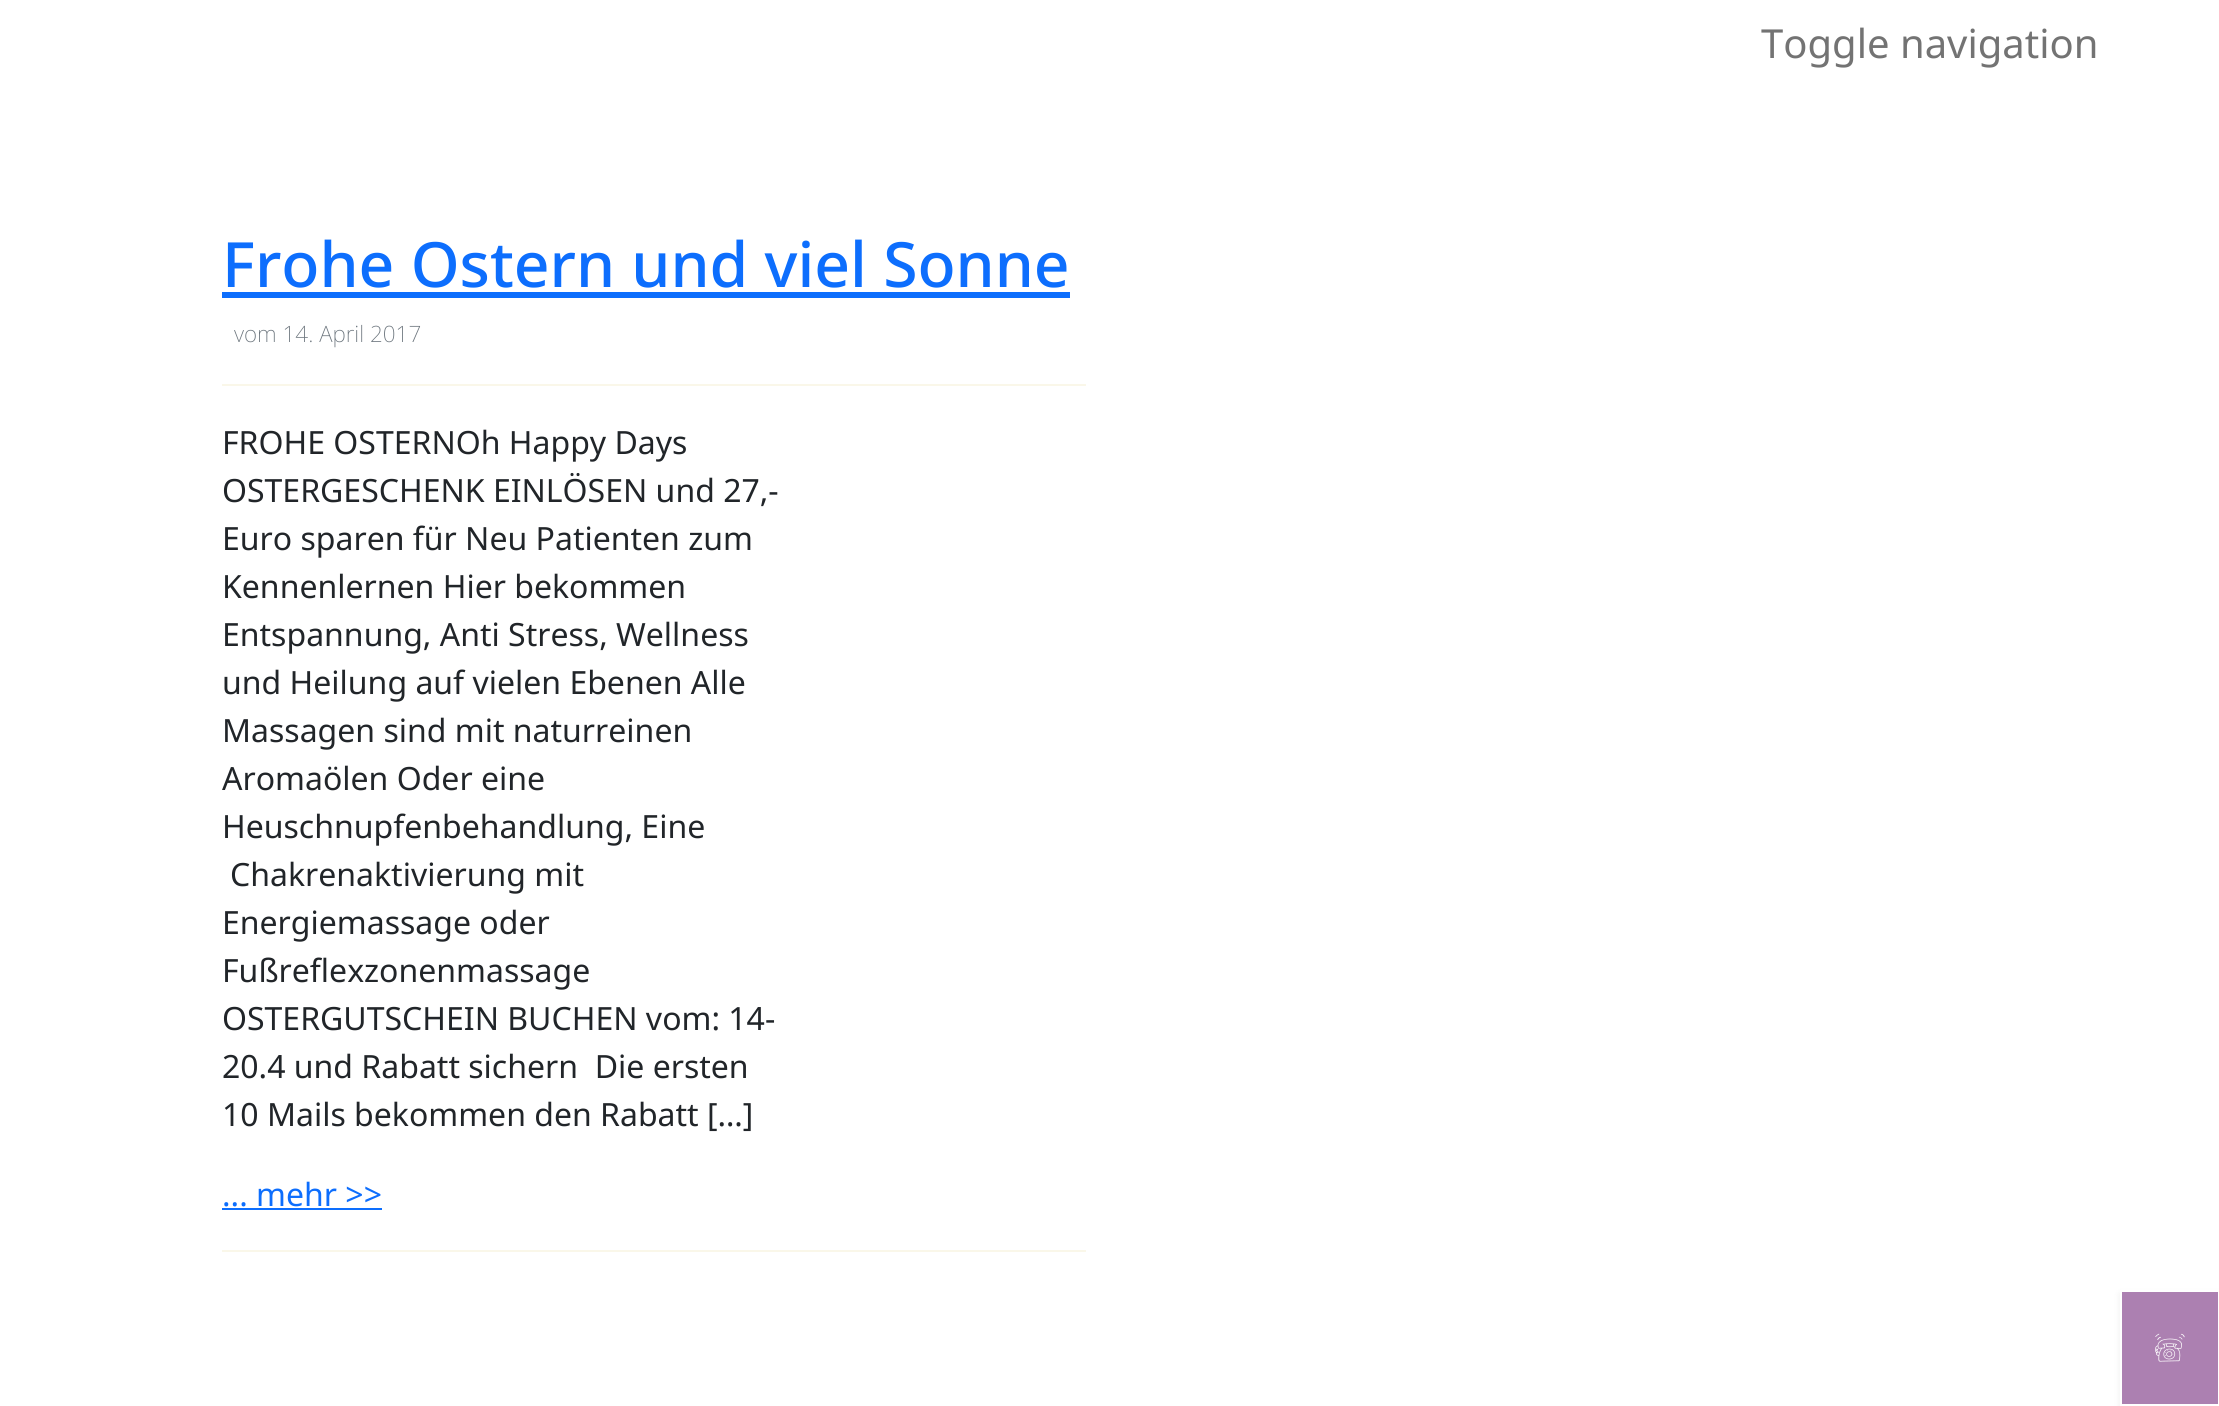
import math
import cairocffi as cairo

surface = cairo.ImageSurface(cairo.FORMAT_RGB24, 2219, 1406)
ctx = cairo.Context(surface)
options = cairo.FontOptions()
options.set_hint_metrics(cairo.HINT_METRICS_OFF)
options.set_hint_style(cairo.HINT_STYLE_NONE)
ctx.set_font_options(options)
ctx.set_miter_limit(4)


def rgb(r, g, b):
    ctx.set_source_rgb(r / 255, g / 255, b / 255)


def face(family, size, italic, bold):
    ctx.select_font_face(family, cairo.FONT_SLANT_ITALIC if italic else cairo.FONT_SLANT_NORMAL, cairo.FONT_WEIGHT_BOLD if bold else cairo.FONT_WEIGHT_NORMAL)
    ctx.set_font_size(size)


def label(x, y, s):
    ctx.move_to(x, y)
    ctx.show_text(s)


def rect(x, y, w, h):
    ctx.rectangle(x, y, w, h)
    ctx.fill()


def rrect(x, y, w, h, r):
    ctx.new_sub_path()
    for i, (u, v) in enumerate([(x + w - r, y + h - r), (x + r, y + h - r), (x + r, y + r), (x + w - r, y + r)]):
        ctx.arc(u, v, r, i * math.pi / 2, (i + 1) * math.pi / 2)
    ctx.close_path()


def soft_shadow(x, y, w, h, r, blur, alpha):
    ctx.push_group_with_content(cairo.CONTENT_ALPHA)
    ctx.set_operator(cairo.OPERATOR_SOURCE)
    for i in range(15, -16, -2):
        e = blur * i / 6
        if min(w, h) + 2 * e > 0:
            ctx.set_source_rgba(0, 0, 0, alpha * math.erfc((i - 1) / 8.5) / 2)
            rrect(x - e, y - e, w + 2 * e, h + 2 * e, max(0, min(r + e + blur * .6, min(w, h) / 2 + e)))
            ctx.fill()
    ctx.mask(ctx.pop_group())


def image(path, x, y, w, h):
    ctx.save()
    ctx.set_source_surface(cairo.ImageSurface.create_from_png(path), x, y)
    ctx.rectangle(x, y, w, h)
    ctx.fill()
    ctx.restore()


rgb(255, 255, 255)
ctx.paint()
face('Noto Sans', 40, 0, 0)
rgb(115, 115, 115)
label(1761, 58, 'Toggle navigation')
face('Noto Sans Medium', 62.4, 0, 0)
rgb(13, 110, 253)
label(222, 287, 'Frohe Ostern und viel Sonne')
rect(222, 292, 848, 6)
face('Noto Sans ExtraLight', 22.5, 0, 0)
rgb(108, 117, 125)
label(234, 342, 'vom 14. April 2017')
rgb(250, 247, 233)
rect(222, 384, 864, 2)
face('Noto Sans', 32, 0, 0)
rgb(33, 37, 41)
label(222, 454, 'FROHE OSTERNOh Happy Days')
label(222, 502, 'OSTERGESCHENK EINLÖSEN und 27,-')
label(222, 550, 'Euro sparen für Neu Patienten zum')
label(222, 598, 'Kennenlernen Hier bekommen')
label(222, 646, 'Entspannung, Anti Stress, Wellness')
label(222, 694, 'und Heilung auf vielen Ebenen Alle')
label(222, 742, 'Massagen sind mit naturreinen')
label(222, 790, 'Aromaölen Oder eine')
label(222, 838, 'Heuschnupfenbehandlung, Eine')
label(230, 886, 'Chakrenaktivierung mit')
label(222, 934, 'Energiemassage oder')
label(222, 982, 'Fußreflexzonenmassage')
label(222, 1030, 'OSTERGUTSCHEIN BUCHEN vom: 14-')
label(222, 1078, '20.4 und Rabatt sichern  Die ersten')
label(222, 1126, '10 Mails bekommen den Rabatt […]')
rgb(13, 110, 253)
label(222, 1206, '... mehr >>')
rect(222, 1208, 160, 2)
rgb(250, 247, 233)
rect(222, 1250, 864, 2)
rgb(0, 0, 0)
soft_shadow(2120, 1294, 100, 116, 0, 4, 0.07)
rgb(172, 128, 177)
ctx.rectangle(2121, 1291, 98, 114)
ctx.fill_preserve()
rgb(255, 255, 255)
ctx.stroke()
image('image0.png', 2155, 1333, 30, 29)
surface.write_to_png('render.png')
